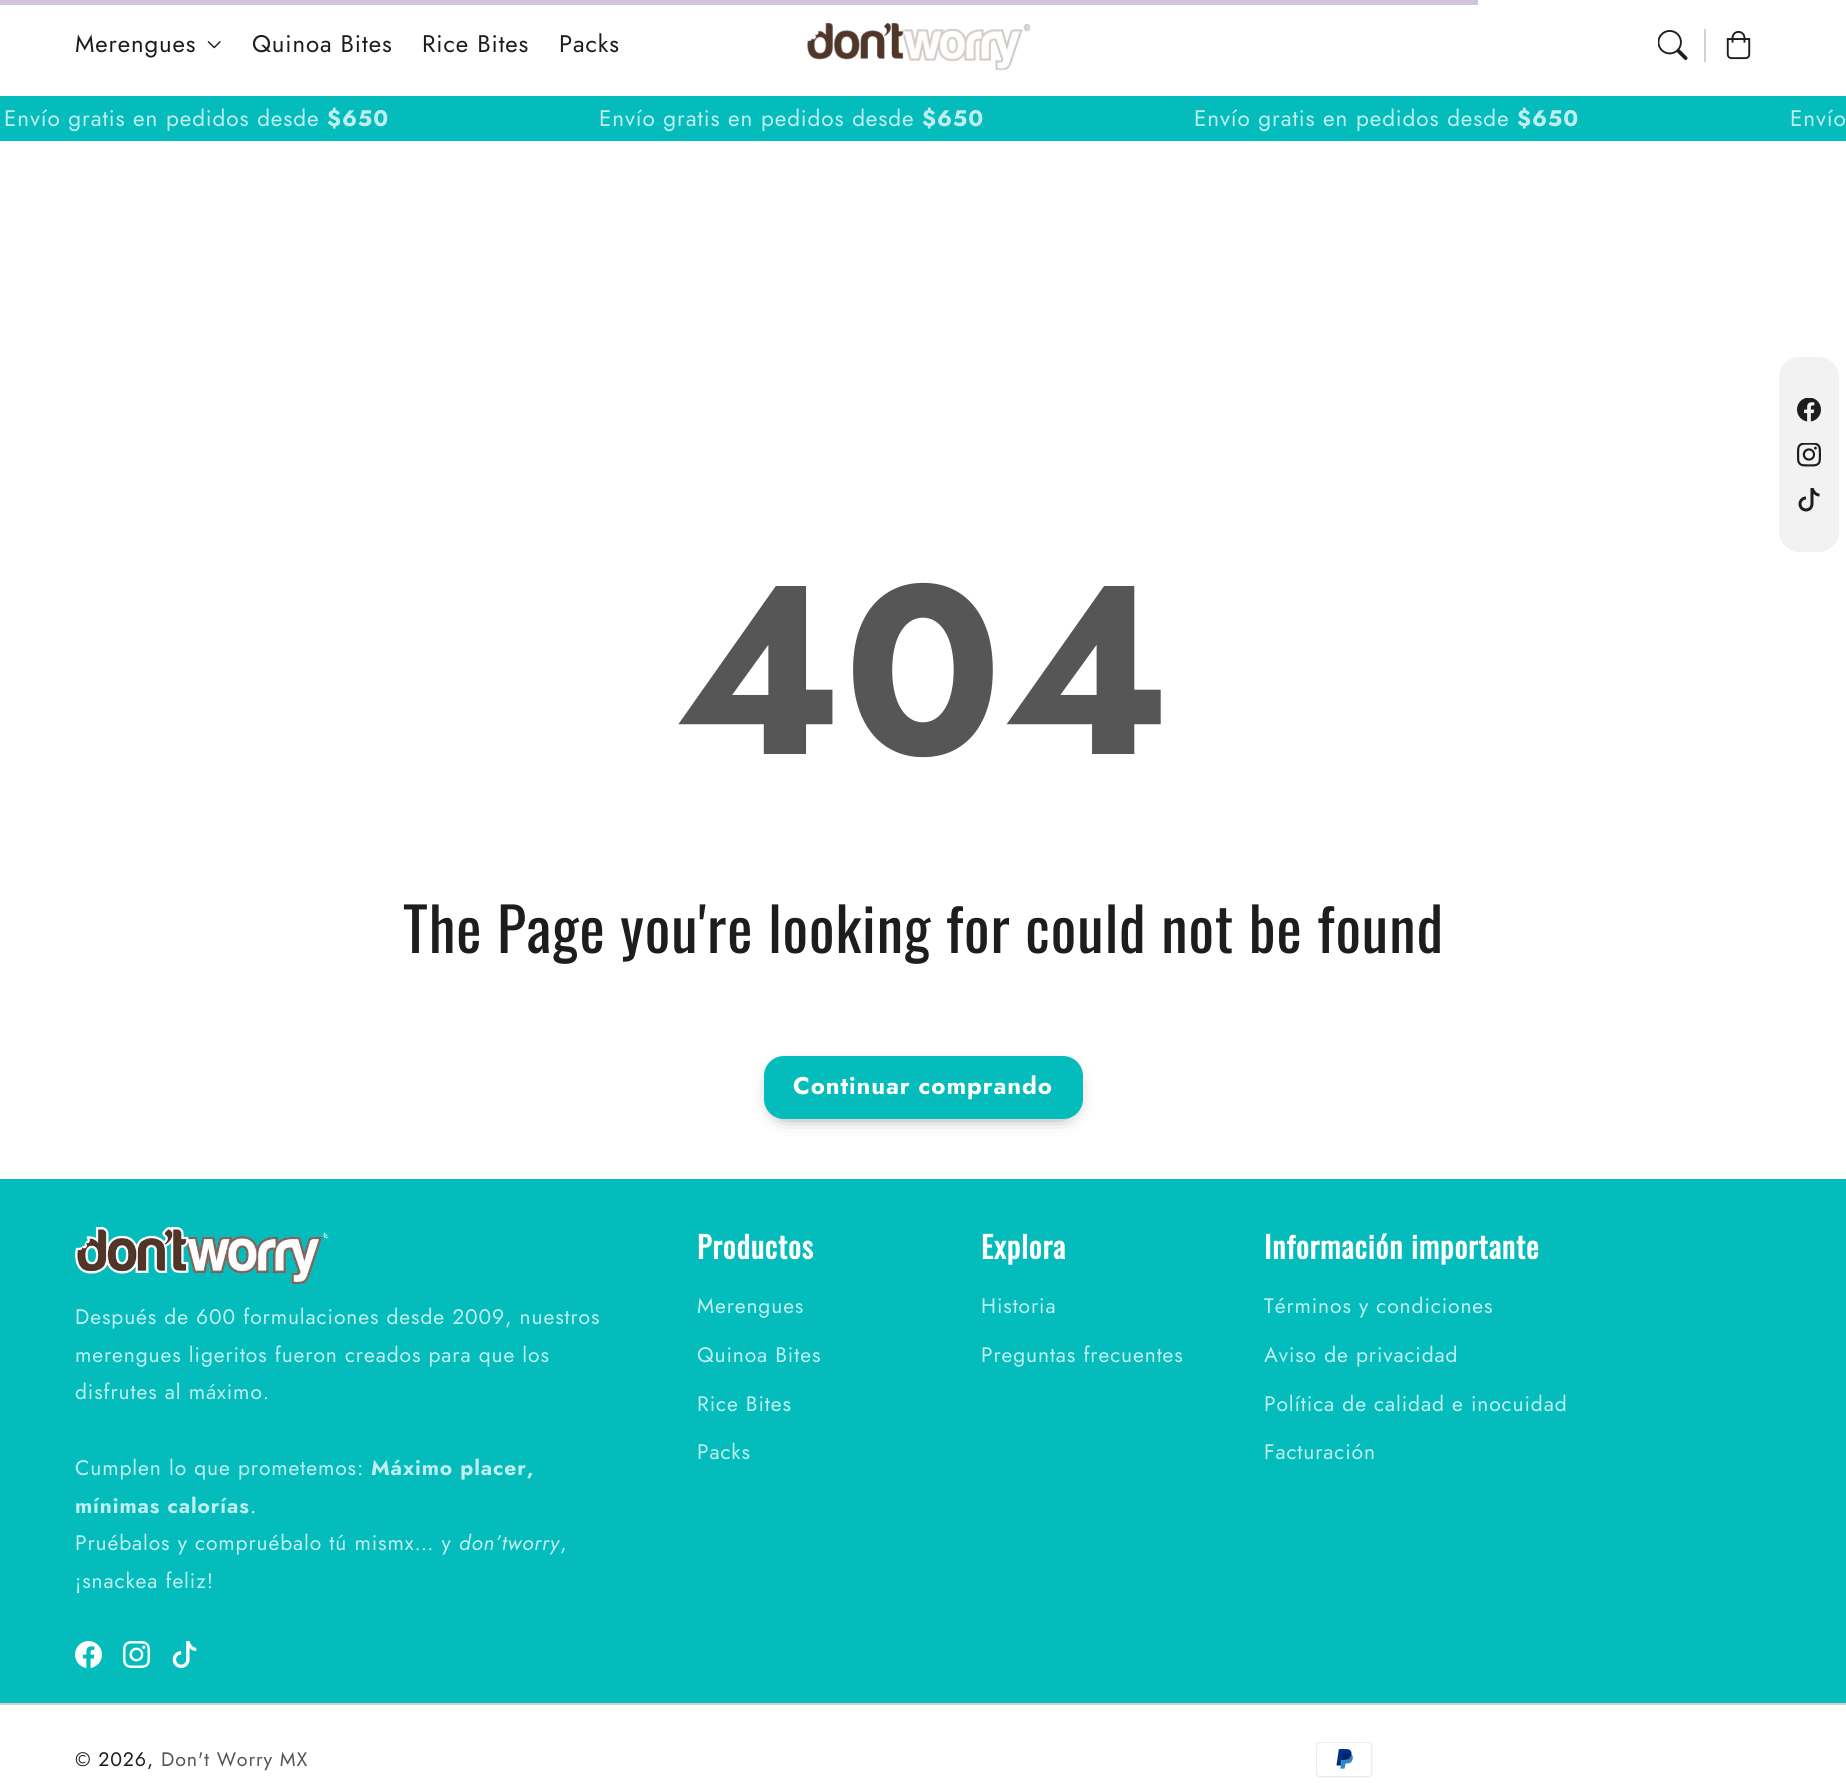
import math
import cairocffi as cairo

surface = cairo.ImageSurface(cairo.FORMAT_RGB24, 1846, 1783)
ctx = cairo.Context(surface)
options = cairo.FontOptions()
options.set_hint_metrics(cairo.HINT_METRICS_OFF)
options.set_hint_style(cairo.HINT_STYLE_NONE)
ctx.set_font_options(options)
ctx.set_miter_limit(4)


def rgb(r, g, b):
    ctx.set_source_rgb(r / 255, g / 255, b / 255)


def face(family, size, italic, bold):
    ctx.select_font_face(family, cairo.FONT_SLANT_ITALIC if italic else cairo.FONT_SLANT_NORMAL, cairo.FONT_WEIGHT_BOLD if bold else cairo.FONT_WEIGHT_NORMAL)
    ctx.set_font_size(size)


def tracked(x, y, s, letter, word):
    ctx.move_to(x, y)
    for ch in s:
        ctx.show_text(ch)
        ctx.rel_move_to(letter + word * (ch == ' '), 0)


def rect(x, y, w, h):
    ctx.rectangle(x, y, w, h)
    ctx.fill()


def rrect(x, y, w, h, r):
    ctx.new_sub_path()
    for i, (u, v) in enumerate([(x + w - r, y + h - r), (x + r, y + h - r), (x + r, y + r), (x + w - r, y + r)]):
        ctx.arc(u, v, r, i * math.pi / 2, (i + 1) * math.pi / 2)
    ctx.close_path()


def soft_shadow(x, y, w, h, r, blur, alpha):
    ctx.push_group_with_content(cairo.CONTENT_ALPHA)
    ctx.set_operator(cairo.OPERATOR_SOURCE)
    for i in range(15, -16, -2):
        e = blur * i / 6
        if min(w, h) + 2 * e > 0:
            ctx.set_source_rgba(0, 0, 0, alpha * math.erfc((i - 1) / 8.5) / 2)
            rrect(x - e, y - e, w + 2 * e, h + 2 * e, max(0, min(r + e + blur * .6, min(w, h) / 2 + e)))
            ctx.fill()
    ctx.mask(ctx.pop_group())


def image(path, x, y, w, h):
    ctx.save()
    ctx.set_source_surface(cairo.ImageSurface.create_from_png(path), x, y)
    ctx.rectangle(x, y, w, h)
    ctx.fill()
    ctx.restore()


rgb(255, 255, 255)
ctx.paint()
rgb(212, 196, 217)
rect(0, 0, 1478, 5)
face('Jost', 24, 0, 0)
rgb(29, 29, 29)
tracked(75, 52, 'Merengues', 0.9, 0)
image('image0.png', 207, 41, 14, 8)
tracked(252, 52, 'Quinoa Bites', 0.9, 0)
tracked(422, 52, 'Rice Bites', 0.9, 0)
tracked(559, 52, 'Packs', 0.9, 0)
image('image1.png', 807, 22, 224, 49)
image('image2.png', 1658, 30, 30, 30)
rgb(209, 209, 209)
rect(1704, 29, 2, 33)
image('image3.png', 1726, 30, 25, 30)
rgb(4, 188, 188)
rect(0, 96, 1846, 45)
face('Jost', 22.5, 0, 0)
rgb(192, 238, 238)
tracked(4, 126, 'Envío gratis en pedidos desde', 0.9, 0)
face('Jost', 22.5, 0, 1)
tracked(327, 126, '$650', 0.9, 0)
face('Jost', 22.5, 0, 0)
tracked(599, 126, 'Envío gratis en pedidos desde', 0.9, 0)
face('Jost', 22.5, 0, 1)
tracked(922, 126, '$650', 0.9, 0)
face('Jost', 22.5, 0, 0)
tracked(1194, 126, 'Envío gratis en pedidos desde', 0.9, 0)
face('Jost', 22.5, 0, 1)
tracked(1517, 126, '$650', 0.9, 0)
face('Jost', 22.5, 0, 0)
tracked(1790, 126, 'Envío', 0.9, 0)
rgb(242, 242, 242)
rrect(1779, 357, 60, 195, 20)
ctx.fill()
image('image4.png', 1797, 398, 24, 24)
image('image5.png', 1797, 443, 24, 24)
image('image6.png', 1798, 488, 22, 24)
face('Jost', 240, 0, 1)
rgb(86, 86, 86)
tracked(675, 754, '404', 0.9, 0)
face('Oswald', 60, 0, 0)
rgb(29, 29, 29)
tracked(403, 953, 'The Page you\'re looking for could not be found', 0.9, 0)
rgb(0, 0, 0)
soft_shadow(779, 1077, 289, 33, 5, 10.5, 1)
rgb(4, 188, 188)
rrect(764, 1056, 319, 63, 20)
ctx.fill()
face('Jost', 24, 0, 1)
rgb(255, 255, 255)
tracked(793, 1094, 'Continuar comprando', 0.9, 0)
rgb(4, 188, 188)
rect(0, 1179, 1846, 524)
image('image7.png', 75, 1227, 254, 57)
face('Jost', 21, 0, 0)
rgb(192, 238, 238)
tracked(75, 1324, 'Después de 600 formulaciones desde 2009, nuestros', 0.9, 0)
tracked(75, 1362, 'merengues ligeritos fueron creados para que los', 0.9, 0)
tracked(75, 1399, 'disfrutes al máximo.', 0.9, 0)
tracked(75, 1475, 'Cumplen lo que prometemos:', 0.9, 0)
face('Jost', 21, 0, 1)
tracked(371, 1475, 'Máximo placer,', 0.9, 0)
tracked(75, 1513, 'mínimas calorías', 0.9, 0)
face('Jost', 21, 0, 0)
tracked(250, 1513, '.', 0.9, 0)
tracked(75, 1550, 'Pruébalos y compruébalo tú mismx… y', 0.9, 0)
face('Jost', 21, 1, 0)
tracked(459, 1550, 'don’tworry', 0.9, 0)
face('Jost', 21, 0, 0)
tracked(560, 1550, ',', 0.9, 0)
tracked(75, 1588, '¡snackea feliz!', 0.9, 0)
image('image8.png', 75, 1641, 27, 27)
image('image9.png', 123, 1641, 27, 27)
image('image10.png', 172, 1641, 25, 27)
face('Oswald', 30, 0, 1)
rgb(255, 255, 255)
tracked(697, 1259, 'Productos', 0.9, 0)
face('Jost', 21, 0, 0)
rgb(192, 238, 238)
tracked(697, 1313, 'Merengues', 0.9, 0)
tracked(697, 1362, 'Quinoa Bites', 0.9, 0)
tracked(697, 1411, 'Rice Bites', 0.9, 0)
tracked(697, 1459, 'Packs', 0.9, 0)
face('Oswald', 30, 0, 1)
rgb(255, 255, 255)
tracked(981, 1259, 'Explora', 0.9, 0)
face('Jost', 21, 0, 0)
rgb(192, 238, 238)
tracked(981, 1313, 'Historia', 0.9, 0)
tracked(981, 1362, 'Preguntas frecuentes', 0.9, 0)
face('Oswald', 30, 0, 1)
rgb(255, 255, 255)
tracked(1264, 1259, 'Información importante', 0.9, 0)
face('Jost', 21, 0, 0)
rgb(192, 238, 238)
tracked(1264, 1313, 'Términos y condiciones', 0.9, 0)
tracked(1264, 1362, 'Aviso de privacidad', 0.9, 0)
tracked(1264, 1411, 'Política de calidad e inocuidad', 0.9, 0)
tracked(1264, 1459, 'Facturación', 0.9, 0)
rgb(209, 209, 209)
rect(0, 1703, 1846, 2)
face('Jost', 19.5, 0, 0)
rgb(29, 29, 29)
tracked(75, 1766, '© 2026,', 0.9, 0)
rgb(86, 86, 86)
tracked(161, 1766, 'Don\'t Worry MX', 0.9, 0)
image('image11.png', 1316, 1742, 57, 36)
surface.write_to_png('render.png')
